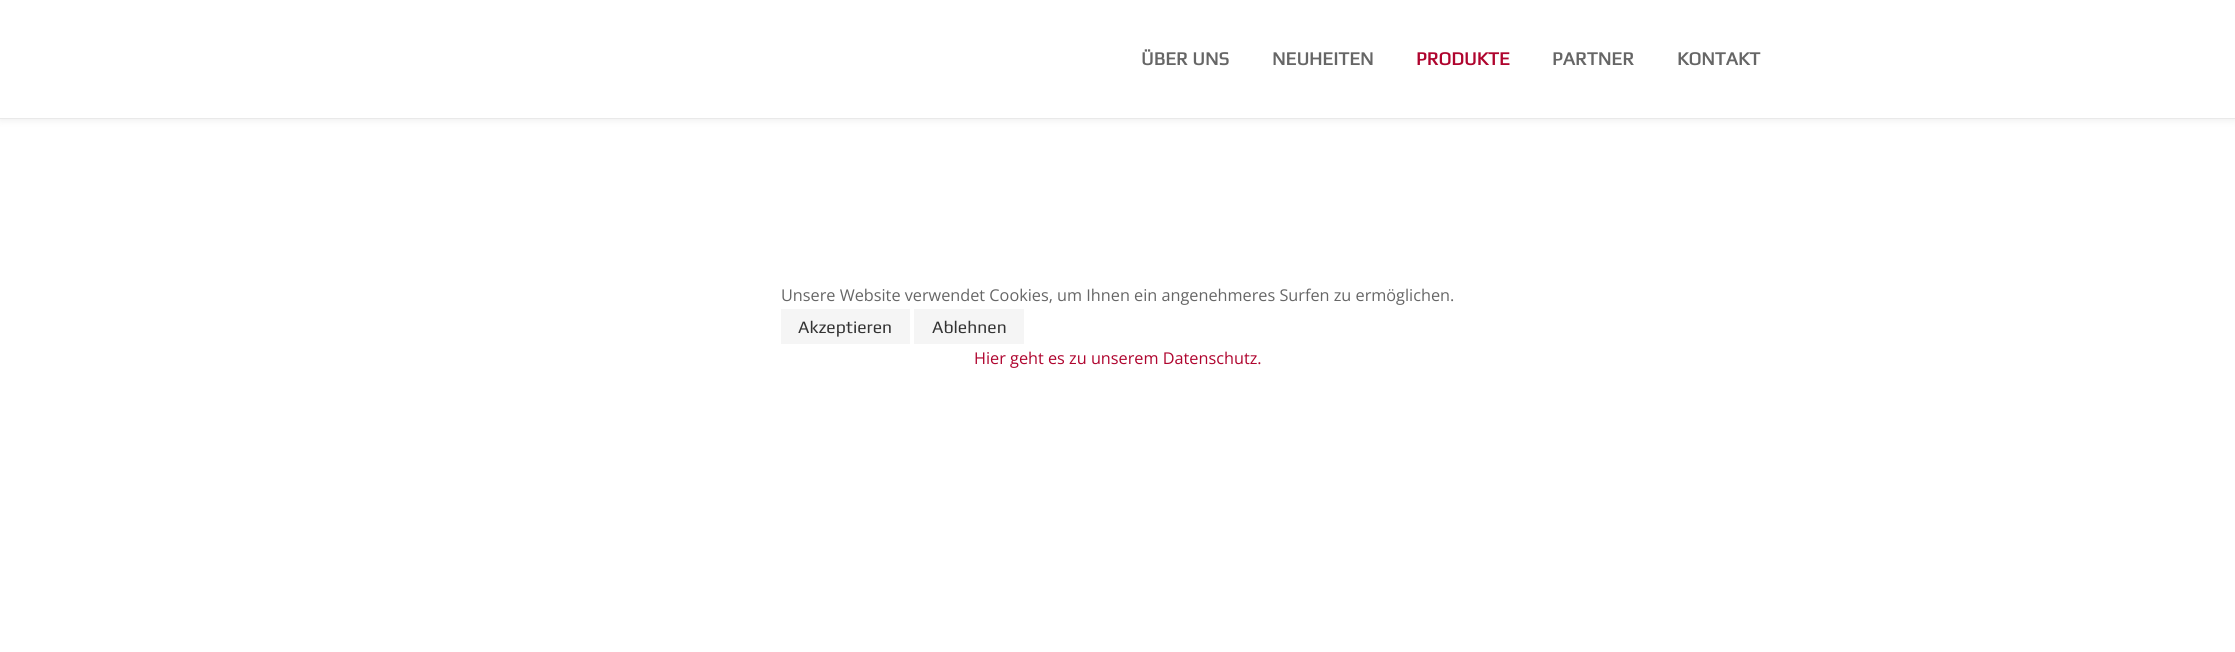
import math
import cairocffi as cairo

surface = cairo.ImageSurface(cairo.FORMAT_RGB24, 2235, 652)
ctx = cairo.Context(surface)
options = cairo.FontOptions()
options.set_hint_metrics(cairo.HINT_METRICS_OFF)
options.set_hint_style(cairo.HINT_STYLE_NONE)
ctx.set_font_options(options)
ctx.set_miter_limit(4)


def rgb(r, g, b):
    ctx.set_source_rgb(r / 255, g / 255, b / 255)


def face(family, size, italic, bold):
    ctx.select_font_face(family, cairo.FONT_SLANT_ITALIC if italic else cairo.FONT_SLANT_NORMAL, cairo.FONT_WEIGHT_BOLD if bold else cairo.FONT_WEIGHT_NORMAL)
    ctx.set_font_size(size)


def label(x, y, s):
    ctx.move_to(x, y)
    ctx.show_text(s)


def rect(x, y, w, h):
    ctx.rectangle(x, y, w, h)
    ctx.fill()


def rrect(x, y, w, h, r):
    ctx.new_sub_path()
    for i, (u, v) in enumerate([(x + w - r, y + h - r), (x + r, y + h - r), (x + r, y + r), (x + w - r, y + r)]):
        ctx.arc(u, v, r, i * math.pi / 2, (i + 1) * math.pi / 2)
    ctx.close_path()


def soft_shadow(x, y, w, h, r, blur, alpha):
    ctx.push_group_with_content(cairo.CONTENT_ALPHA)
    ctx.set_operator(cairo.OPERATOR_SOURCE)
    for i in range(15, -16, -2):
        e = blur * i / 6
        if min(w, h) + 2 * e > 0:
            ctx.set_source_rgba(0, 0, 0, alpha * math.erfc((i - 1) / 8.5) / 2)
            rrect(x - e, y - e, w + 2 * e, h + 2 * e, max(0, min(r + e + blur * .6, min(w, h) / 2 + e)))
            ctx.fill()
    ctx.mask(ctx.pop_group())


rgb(255, 255, 255)
ctx.paint()
rgb(0, 0, 0)
soft_shadow(0, 0, 2235, 119, 0, 4.5, 0.09)
rgb(255, 255, 255)
rect(0, 0, 2235, 118)
rgb(233, 233, 233)
rect(0, 118, 2235, 1)
face('Play', 18.75, 0, 1)
rgb(102, 102, 102)
label(1141, 65, 'ÜBER UNS')
label(1272, 65, 'NEUHEITEN')
rgb(175, 4, 46)
label(1416, 65, 'PRODUKTE')
rgb(102, 102, 102)
label(1552, 65, 'PARTNER')
label(1677, 65, 'KONTAKT')
face('Open Sans', 16.25, 0, 0)
label(781, 301, 'Unsere Website verwendet Cookies, um Ihnen ein angenehmeres Surfen zu ermöglichen.')
rgb(245, 245, 245)
rect(781, 309, 129, 35)
face('Play', 17.5, 0, 0)
rgb(51, 51, 51)
label(798, 333, 'Akzeptieren')
rgb(245, 245, 245)
rect(914, 309, 110, 35)
rgb(51, 51, 51)
label(932, 333, 'Ablehnen')
face('Open Sans', 16.25, 0, 0)
rgb(175, 4, 46)
label(974, 364, 'Hier geht es zu unserem Datenschutz.')
surface.write_to_png('render.png')
